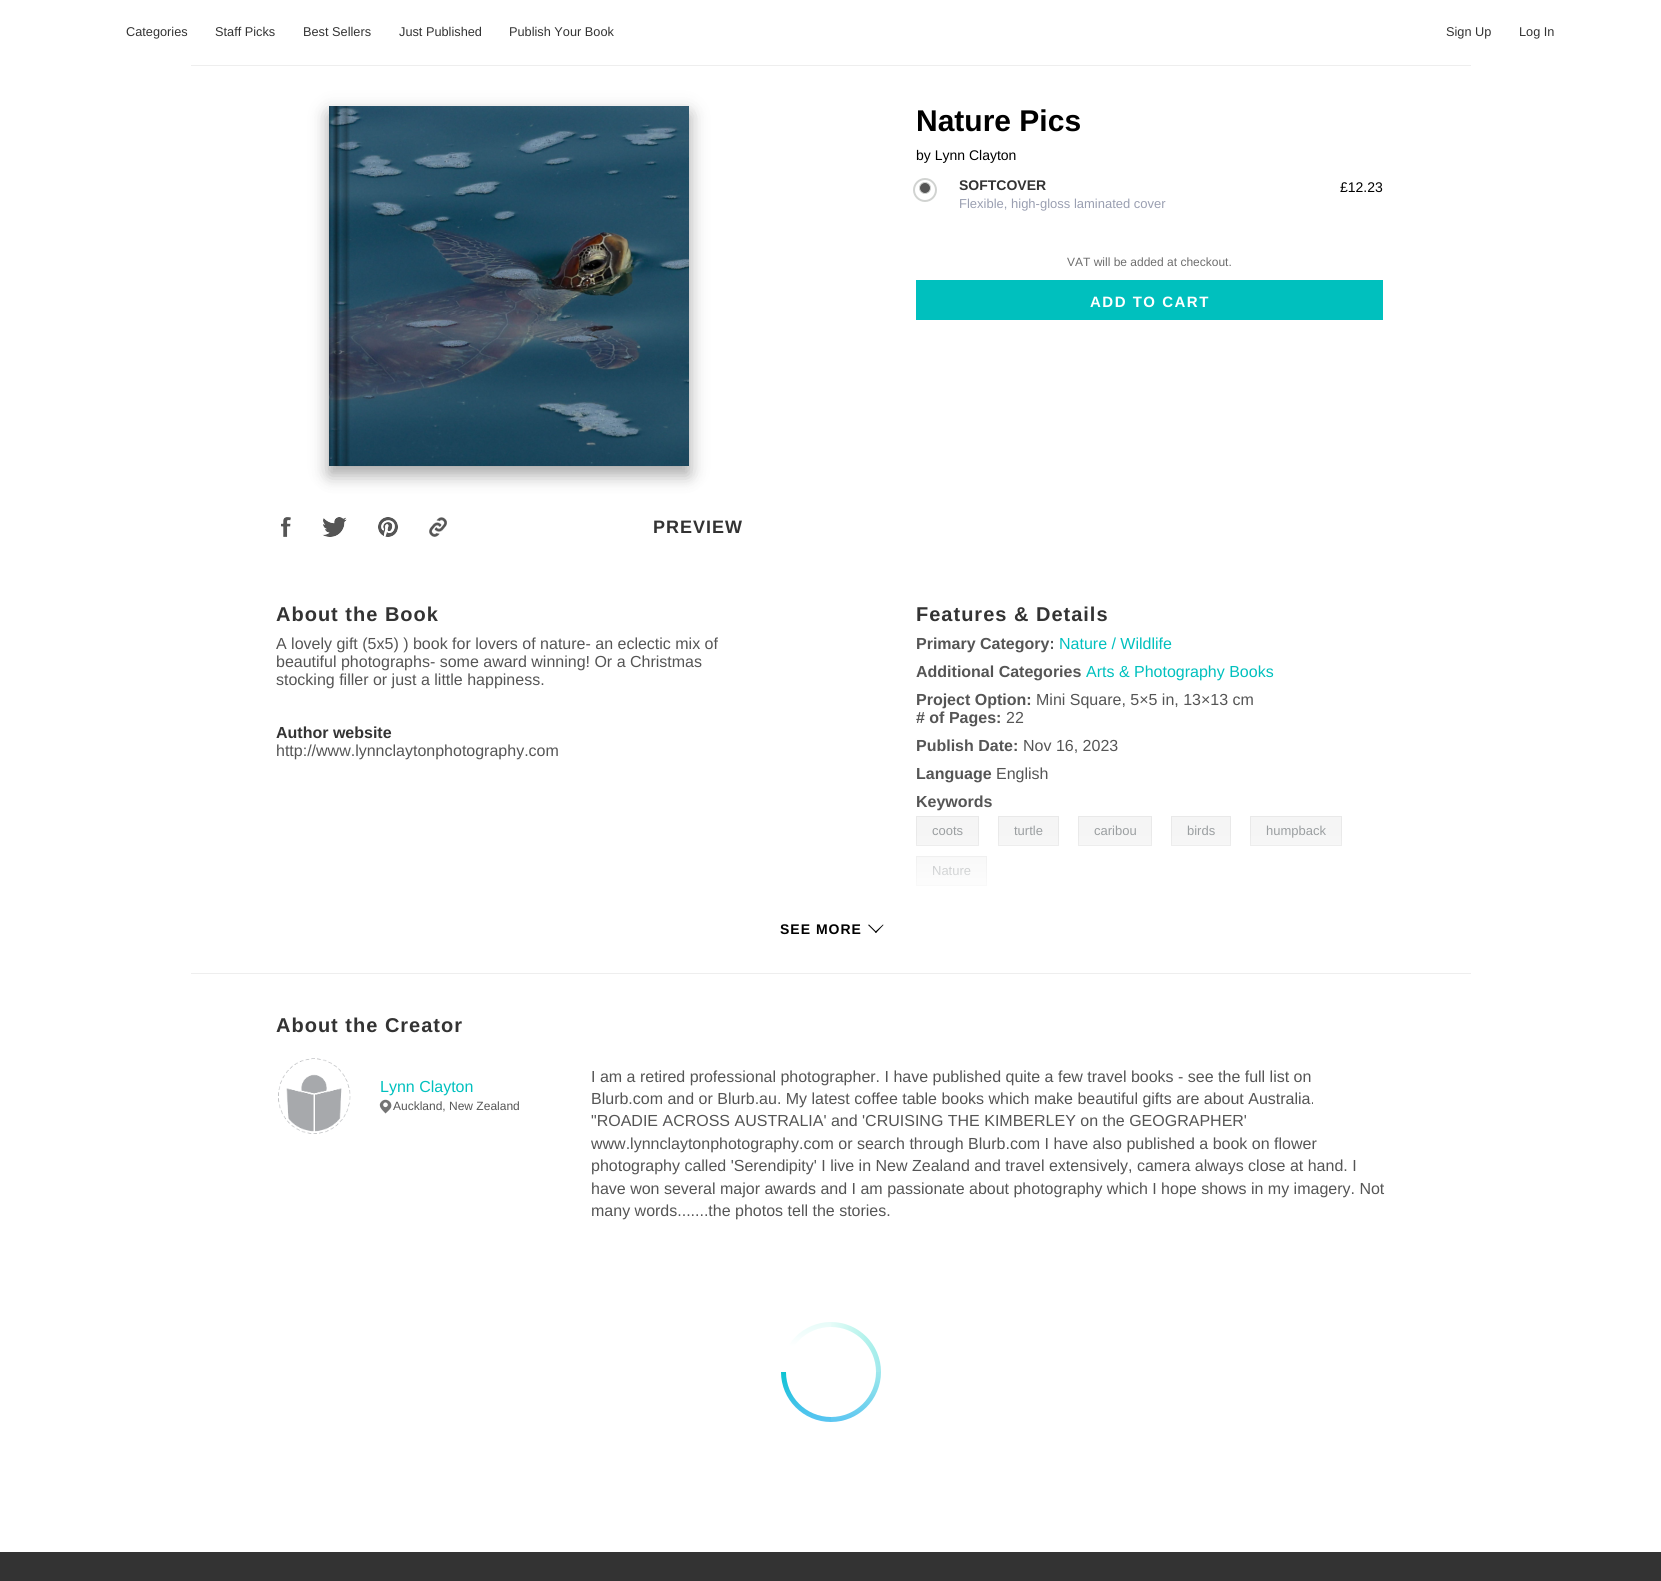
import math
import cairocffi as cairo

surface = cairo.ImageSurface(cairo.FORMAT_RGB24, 1661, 1581)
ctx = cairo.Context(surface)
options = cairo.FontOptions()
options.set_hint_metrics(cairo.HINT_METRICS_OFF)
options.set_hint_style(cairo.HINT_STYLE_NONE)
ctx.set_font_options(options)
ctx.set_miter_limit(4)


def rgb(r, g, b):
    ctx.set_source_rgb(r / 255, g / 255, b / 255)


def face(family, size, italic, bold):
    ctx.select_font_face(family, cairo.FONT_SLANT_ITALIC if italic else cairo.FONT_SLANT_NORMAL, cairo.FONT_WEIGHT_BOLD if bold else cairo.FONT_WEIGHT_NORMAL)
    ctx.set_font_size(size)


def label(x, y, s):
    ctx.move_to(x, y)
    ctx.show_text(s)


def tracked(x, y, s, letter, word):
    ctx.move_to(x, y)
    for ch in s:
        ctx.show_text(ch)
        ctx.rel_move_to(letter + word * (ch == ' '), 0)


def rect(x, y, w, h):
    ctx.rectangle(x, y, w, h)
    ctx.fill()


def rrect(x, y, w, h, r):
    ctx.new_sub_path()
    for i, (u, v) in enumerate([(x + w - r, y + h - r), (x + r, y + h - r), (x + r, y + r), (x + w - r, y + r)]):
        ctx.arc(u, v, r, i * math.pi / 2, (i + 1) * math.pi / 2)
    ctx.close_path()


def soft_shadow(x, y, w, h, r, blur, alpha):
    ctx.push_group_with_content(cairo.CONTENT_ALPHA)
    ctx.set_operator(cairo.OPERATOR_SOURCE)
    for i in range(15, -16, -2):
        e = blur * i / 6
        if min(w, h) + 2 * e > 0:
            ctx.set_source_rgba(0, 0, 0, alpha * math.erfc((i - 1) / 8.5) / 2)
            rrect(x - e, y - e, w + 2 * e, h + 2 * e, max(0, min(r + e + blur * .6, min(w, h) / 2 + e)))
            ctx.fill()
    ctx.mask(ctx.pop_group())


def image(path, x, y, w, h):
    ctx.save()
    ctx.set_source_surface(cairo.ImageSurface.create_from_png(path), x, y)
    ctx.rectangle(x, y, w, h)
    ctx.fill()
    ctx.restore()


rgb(255, 255, 255)
ctx.paint()
face('Liberation Sans', 12.75, 0, 0)
rgb(51, 51, 51)
label(126, 36, 'Categories')
label(215, 36, 'Staff Picks')
label(303, 36, 'Best Sellers')
label(399, 36, 'Just Published')
label(509, 36, 'Publish Your Book')
label(1446, 36, 'Sign Up')
label(1519, 36, 'Log In')
rgb(238, 238, 238)
rect(191, 65, 1280, 1)
face('Liberation Sans', 30, 0, 1)
rgb(0, 0, 0)
label(916, 131, 'Nature Pics')
face('Liberation Sans', 14, 0, 0)
label(916, 160, 'by Lynn Clayton')
ctx.new_path()
ctx.arc(925, 190, 11, 0, 2 * math.pi)
rgb(209, 211, 209)
ctx.stroke()
rgb(85, 85, 85)
ctx.arc(925, 188, 5.5, 0, 2 * math.pi)
ctx.fill_preserve()
rgb(209, 211, 209)
ctx.set_line_width(1)
ctx.stroke()
face('Liberation Sans', 14, 0, 1)
rgb(51, 51, 51)
label(959, 190, 'SOFTCOVER')
face('Liberation Sans', 13, 0, 0)
rgb(154, 159, 177)
label(959, 208, 'Flexible, high-gloss laminated cover')
face('Liberation Sans', 14, 0, 0)
rgb(0, 0, 0)
label(1340, 192, '£12.23')
face('Liberation Sans', 12, 0, 0)
rgb(109, 109, 109)
label(1067, 266, 'VAT will be added at checkout.')
rgb(0, 192, 190)
rect(916, 280, 467, 40)
face('Liberation Sans', 15, 0, 1)
rgb(255, 255, 255)
tracked(1090, 307, 'ADD TO CART', 1.5, 0)
rgb(0, 0, 0)
soft_shadow(329, 112, 360, 360, 0, 10, 0.19)
soft_shadow(329, 116, 360, 360, 0, 8, 0.2)
image('image0.png', 329, 106, 360, 360)
image('image1.png', 281, 517, 10, 20)
image('image2.png', 322, 517, 25, 20)
image('image3.png', 378, 517, 20, 20)
image('image4.png', 429, 517, 18, 20)
face('Liberation Sans', 18, 0, 1)
rgb(51, 51, 51)
tracked(653, 533, 'PREVIEW', 1, 0)
face('Liberation Sans', 20, 0, 1)
tracked(276, 621, 'About the Book', 1, 0)
face('Liberation Sans', 16, 0, 0)
rgb(85, 85, 85)
label(276, 649, 'A lovely gift (5x5) ) book for lovers of nature- an eclectic mix of')
label(276, 667, 'beautiful photographs- some award winning! Or a Christmas')
label(276, 685, 'stocking filler or just a little happiness.')
face('Liberation Sans', 16, 0, 1)
rgb(51, 51, 51)
label(276, 738, 'Author website')
face('Liberation Sans', 16, 0, 0)
rgb(85, 85, 85)
label(276, 756, 'http://www.lynnclaytonphotography.com')
face('Liberation Sans', 20, 0, 1)
rgb(51, 51, 51)
tracked(916, 621, 'Features & Details', 1, 0)
face('Liberation Sans', 16, 0, 1)
rgb(85, 85, 85)
label(916, 649, 'Primary Category:')
face('Liberation Sans', 16, 0, 0)
rgb(0, 192, 190)
label(1059, 649, 'Nature / Wildlife')
face('Liberation Sans', 16, 0, 1)
rgb(85, 85, 85)
label(916, 677, 'Additional Categories')
face('Liberation Sans', 16, 0, 0)
rgb(0, 192, 190)
label(1086, 677, 'Arts & Photography Books')
face('Liberation Sans', 16, 0, 1)
rgb(85, 85, 85)
label(916, 705, 'Project Option:')
face('Liberation Sans', 16, 0, 0)
label(1036, 705, 'Mini Square, 5×5 in, 13×13 cm')
face('Liberation Sans', 16, 0, 1)
label(916, 723, '# of Pages:')
face('Liberation Sans', 16, 0, 0)
label(1006, 723, '22')
face('Liberation Sans', 16, 0, 1)
label(916, 751, 'Publish Date:')
face('Liberation Sans', 16, 0, 0)
label(1023, 751, 'Nov 16, 2023')
face('Liberation Sans', 16, 0, 1)
label(916, 779, 'Language')
face('Liberation Sans', 16, 0, 0)
label(996, 779, 'English')
face('Liberation Sans', 16, 0, 1)
label(916, 807, 'Keywords')
rgb(245, 245, 245)
ctx.rectangle(916.5, 816.5, 62, 29)
ctx.fill_preserve()
rgb(233, 233, 233)
ctx.stroke()
face('Liberation Sans', 13, 0, 0)
rgb(155, 159, 161)
label(932, 835, 'coots')
rgb(245, 245, 245)
ctx.rectangle(998.5, 816.5, 60, 29)
ctx.fill_preserve()
rgb(233, 233, 233)
ctx.stroke()
rgb(155, 159, 161)
label(1014, 835, 'turtle')
rgb(245, 245, 245)
ctx.rectangle(1078.5, 816.5, 73, 29)
ctx.fill_preserve()
rgb(233, 233, 233)
ctx.stroke()
rgb(155, 159, 161)
label(1094, 835, 'caribou')
rgb(245, 245, 245)
ctx.rectangle(1171.5, 816.5, 59, 29)
ctx.fill_preserve()
rgb(233, 233, 233)
ctx.stroke()
rgb(155, 159, 161)
label(1187, 835, 'birds')
rgb(245, 245, 245)
ctx.rectangle(1250.5, 816.5, 91, 29)
ctx.fill_preserve()
rgb(233, 233, 233)
ctx.stroke()
rgb(155, 159, 161)
label(1266, 835, 'humpback')
rgb(245, 245, 245)
ctx.rectangle(916.5, 856.5, 70, 29)
ctx.fill_preserve()
rgb(233, 233, 233)
ctx.stroke()
rgb(155, 159, 161)
label(932, 875, 'Nature')
gradient = cairo.LinearGradient(831, 903, 831, 833)
gradient.add_color_stop_rgba(0, 1, 1, 1, 1)
gradient.add_color_stop_rgba(1, 1, 1, 1, 0)
ctx.set_source(gradient)
rect(916, 836, 426, 50)
face('Liberation Sans', 14, 0, 1)
rgb(0, 0, 0)
tracked(780, 934, 'SEE MORE', 1, 0)
ctx.new_path()
ctx.move_to(883, 924.5)
ctx.line_to(883.5, 925)
ctx.line_to(876, 933)
ctx.line_to(875, 932)
ctx.close_path()
ctx.fill()
ctx.new_path()
ctx.move_to(869, 924.5)
ctx.line_to(876.5, 932)
ctx.line_to(876, 933)
ctx.line_to(868, 925)
ctx.close_path()
ctx.fill()
rgb(238, 238, 238)
rect(191, 973, 1280, 1)
face('Liberation Sans', 20, 0, 1)
rgb(51, 51, 51)
tracked(276, 1032, 'About the Creator', 1, 0)
image('image5.png', 278, 1058, 73, 76)
face('Liberation Sans', 16, 0, 0)
rgb(0, 192, 190)
label(380, 1092, 'Lynn Clayton')
rgb(117, 117, 117)
ctx.new_path()
ctx.move_to(381.5, 1101.5)
ctx.curve_to(386, 1097, 393, 1102, 391, 1107.5)
ctx.curve_to(390, 1109.5, 387.5, 1111.5, 385.5, 1113.5)
ctx.curve_to(382.5, 1110, 377, 1106, 381.5, 1101.5)
ctx.close_path()
ctx.fill()
rgb(255, 255, 255)
ctx.new_path()
ctx.move_to(384, 1103)
ctx.curve_to(386, 1101, 389.5, 1104.5, 387, 1106.5)
ctx.curve_to(385, 1108.5, 381.5, 1105.5, 384, 1103)
ctx.close_path()
ctx.fill()
face('Liberation Sans', 12, 0, 0)
rgb(85, 85, 85)
label(393, 1110, 'Auckland, New Zealand')
face('Liberation Sans', 16, 0, 0)
label(591, 1082, 'I am a retired professional photographer. I have published quite a few travel books - see the full list on')
label(591, 1104, 'Blurb.com and or Blurb.au. My latest coffee table books which make beautiful gifts are about Australia.')
label(591, 1126, '"ROADIE ACROSS AUSTRALIA\' and \'CRUISING THE KIMBERLEY on the GEOGRAPHER\'')
label(591, 1149, 'www.lynnclaytonphotography.com or search through Blurb.com I have also published a book on flower')
label(591, 1171, 'photography called \'Serendipity\' I live in New Zealand and travel extensively, camera always close at hand. I')
label(591, 1194, 'have won several major awards and I am passionate about photography which I hope shows in my imagery. Not')
label(591, 1216, 'many words.......the photos tell the stories.')
gradient = cairo.LinearGradient(831, 1322, 831, 1422)
gradient.add_color_stop_rgba(0, 0.016, 0.863, 0.722, 1)
gradient.add_color_stop_rgba(1, 0.086, 0.678, 0.925, 1)
ctx.set_source(gradient)
ctx.new_path()
ctx.arc(831, 1372, 50, 0, 2 * math.pi)
ctx.fill()
gradient = cairo.LinearGradient(806, 1423, 806, 1372)
gradient.add_color_stop_rgba(0, 1, 1, 1, 0.3)
gradient.add_color_stop_rgba(1, 1, 1, 1, 0)
ctx.set_source(gradient)
ctx.new_path()
ctx.move_to(780, 1372)
ctx.line_to(831, 1372)
ctx.line_to(831, 1423)
ctx.curve_to(803, 1423, 780, 1400, 780, 1372)
ctx.close_path()
ctx.fill()
gradient = cairo.LinearGradient(857, 1372, 857, 1423)
gradient.add_color_stop_rgba(0, 1, 1, 1, 0.6)
gradient.add_color_stop_rgba(1, 1, 1, 1, 0.3)
ctx.set_source(gradient)
ctx.new_path()
ctx.move_to(831, 1372)
ctx.line_to(882, 1372)
ctx.curve_to(882, 1400, 859, 1423, 831, 1423)
ctx.close_path()
ctx.fill()
gradient = cairo.LinearGradient(831, 1347, 882, 1347)
gradient.add_color_stop_rgba(0, 1, 1, 1, 0.9)
gradient.add_color_stop_rgba(1, 1, 1, 1, 0.6)
ctx.set_source(gradient)
ctx.new_path()
ctx.move_to(831, 1321)
ctx.curve_to(859, 1321, 882, 1344, 882, 1372)
ctx.line_to(831, 1372)
ctx.close_path()
ctx.fill()
gradient = cairo.LinearGradient(806, 1372, 806, 1321)
gradient.add_color_stop_rgba(0.5, 1, 1, 1, 1)
gradient.add_color_stop_rgba(1, 1, 1, 1, 0.9)
ctx.set_source(gradient)
ctx.new_path()
ctx.move_to(831, 1321)
ctx.line_to(831, 1372)
ctx.line_to(780, 1372)
ctx.curve_to(780, 1344, 803, 1321, 831, 1321)
ctx.close_path()
ctx.fill()
rgb(255, 255, 255)
ctx.arc(831, 1372, 45, 0, 2 * math.pi)
ctx.fill()
rgb(51, 51, 51)
rect(0, 1552, 1661, 29)
surface.write_to_png('render.png')
